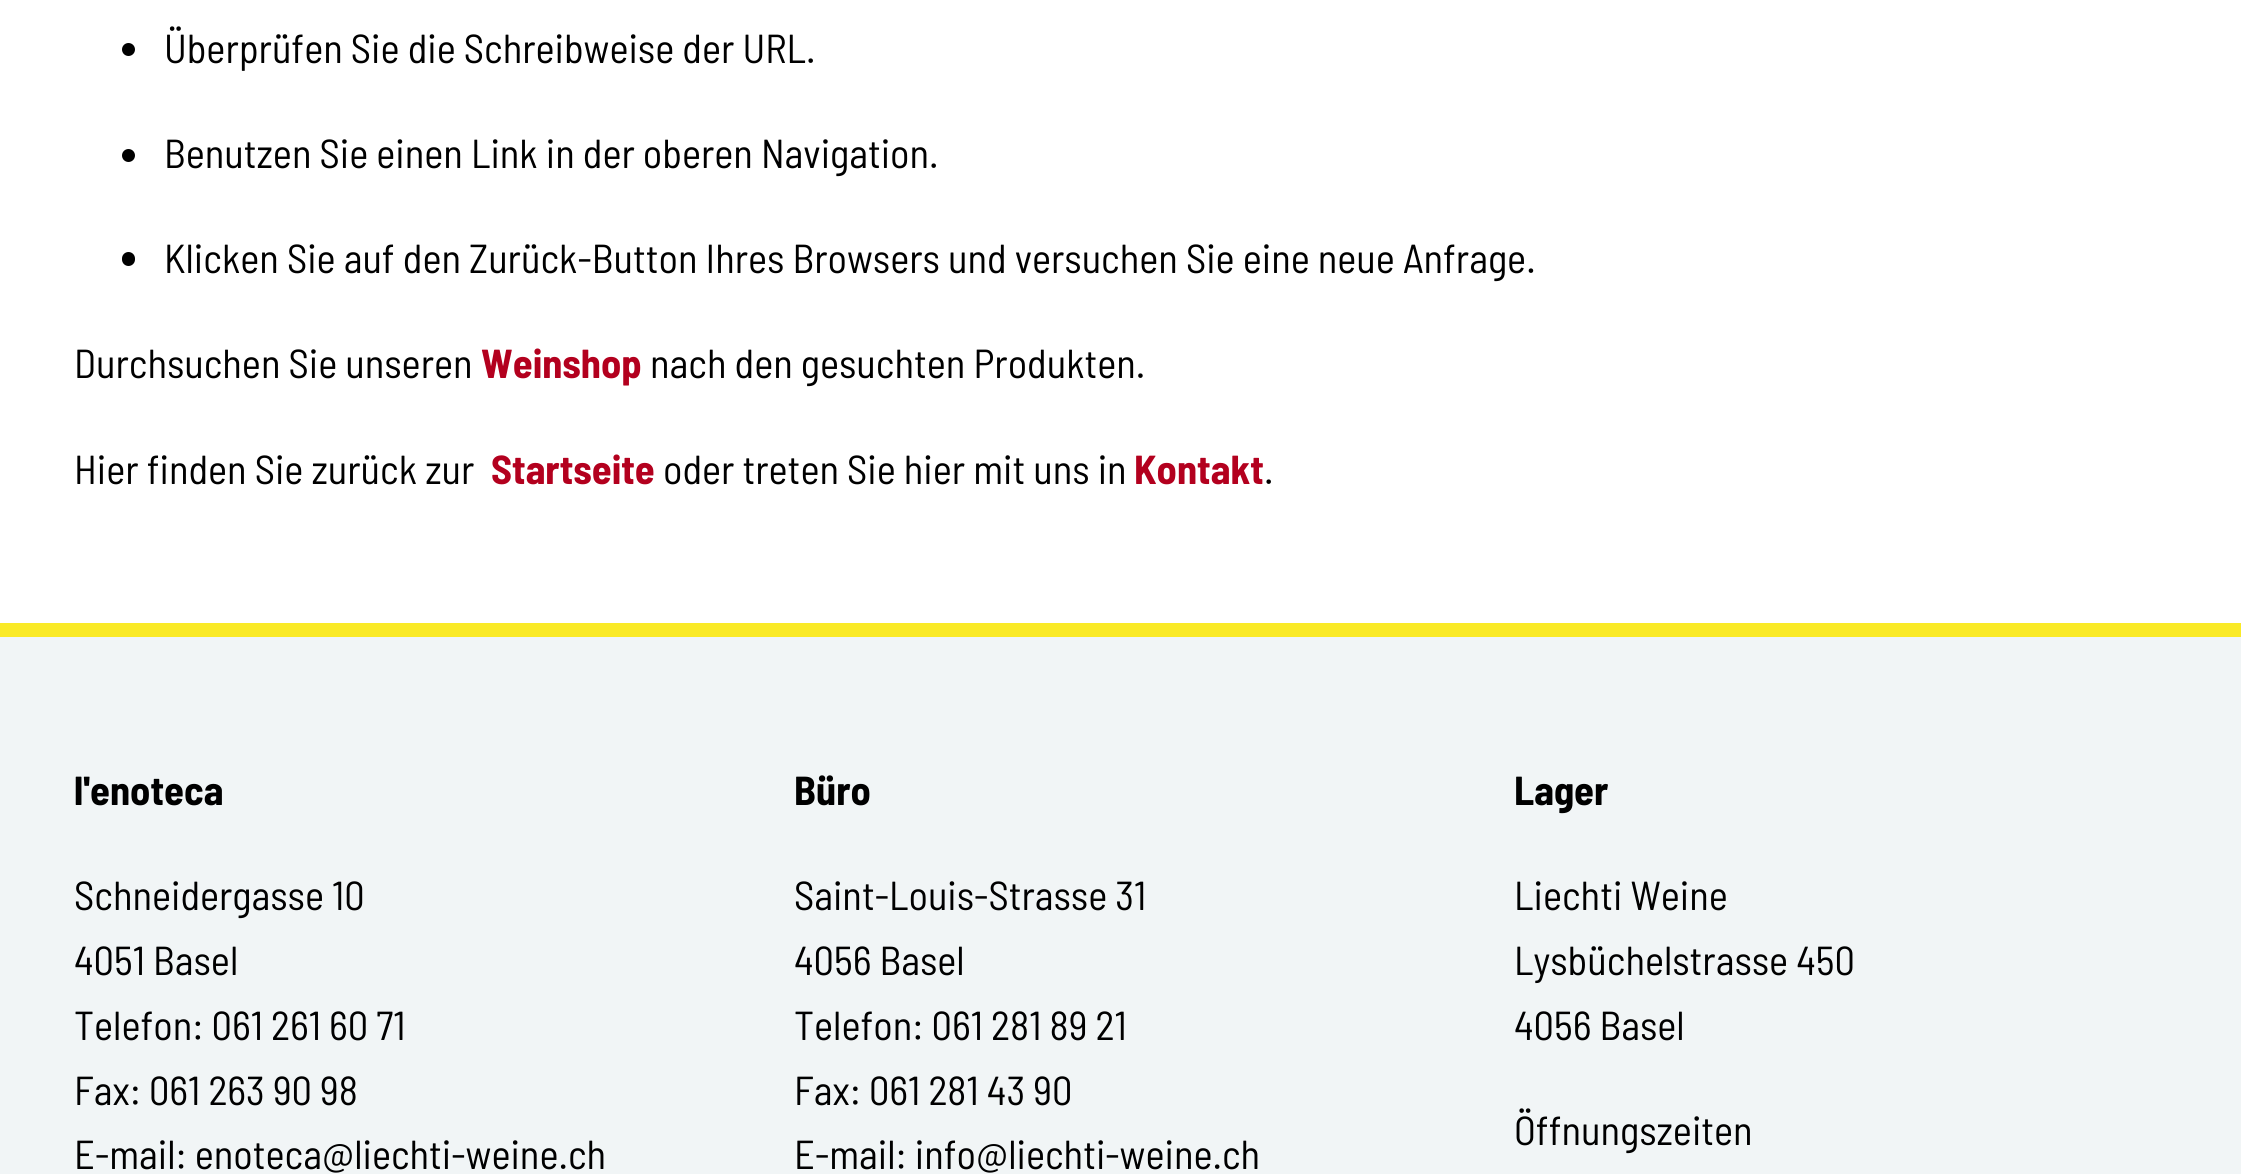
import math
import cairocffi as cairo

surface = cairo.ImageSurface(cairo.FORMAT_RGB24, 2241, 1174)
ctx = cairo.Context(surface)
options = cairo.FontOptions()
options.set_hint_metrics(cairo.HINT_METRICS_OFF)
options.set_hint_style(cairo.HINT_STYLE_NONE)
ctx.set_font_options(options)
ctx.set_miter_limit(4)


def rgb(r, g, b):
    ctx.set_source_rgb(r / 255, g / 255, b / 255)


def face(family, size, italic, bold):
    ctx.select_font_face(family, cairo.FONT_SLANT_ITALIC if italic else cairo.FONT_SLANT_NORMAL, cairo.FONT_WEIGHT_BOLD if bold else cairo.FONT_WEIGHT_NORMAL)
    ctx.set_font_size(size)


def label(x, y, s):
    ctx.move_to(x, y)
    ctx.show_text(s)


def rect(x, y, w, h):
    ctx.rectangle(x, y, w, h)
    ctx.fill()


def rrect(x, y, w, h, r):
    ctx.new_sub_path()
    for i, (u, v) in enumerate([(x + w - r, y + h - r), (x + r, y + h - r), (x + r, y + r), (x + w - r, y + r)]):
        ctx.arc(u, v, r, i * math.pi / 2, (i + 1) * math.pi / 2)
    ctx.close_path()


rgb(255, 255, 255)
ctx.paint()
rgb(0, 0, 0)
ctx.arc(128.5, 49.5, 6.5, 0, 2 * math.pi)
ctx.fill()
face('Barlow Semi Condensed', 40.5, 0, 0)
label(164, 63, 'Überprüfen Sie die Schreibweise der URL.')
ctx.new_path()
ctx.arc(128.5, 155.5, 6.5, 0, 2 * math.pi)
ctx.fill()
label(164, 168, 'Benutzen Sie einen Link in der oberen Navigation.')
rrect(122, 252, 13, 14, 6.5)
ctx.fill()
label(164, 273, 'Klicken Sie auf den Zurück-Button Ihres Browsers und versuchen Sie eine neue Anfrage.')
label(74, 378, 'Durchsuchen Sie unseren')
face('Barlow Semi Condensed', 40.5, 0, 1)
rgb(179, 0, 30)
label(481, 378, 'Weinshop')
face('Barlow Semi Condensed', 40.5, 0, 0)
rgb(0, 0, 0)
label(650, 378, 'nach den gesuchten Produkten.')
label(74, 484, 'Hier finden Sie zurück zur')
face('Barlow Semi Condensed', 40.5, 0, 1)
rgb(179, 0, 30)
label(491, 484, 'Startseite')
face('Barlow Semi Condensed', 40.5, 0, 0)
rgb(0, 0, 0)
label(663, 484, 'oder treten Sie hier mit uns in')
face('Barlow Semi Condensed', 40.5, 0, 1)
rgb(179, 0, 30)
label(1134, 484, 'Kontakt')
face('Barlow Semi Condensed', 40.5, 0, 0)
rgb(0, 0, 0)
label(1264, 484, '.')
rgb(241, 245, 246)
rect(0, 637, 2241, 537)
rgb(250, 234, 39)
rect(0, 623, 2241, 14)
face('Barlow Semi Condensed', 40.5, 0, 1)
rgb(0, 0, 0)
label(74, 805, 'l\'enoteca')
face('Barlow Semi Condensed', 40.5, 0, 0)
label(74, 910, 'Schneidergasse 10')
label(74, 975, '4051 Basel')
label(74, 1040, 'Telefon: 061 261 60 71')
label(74, 1105, 'Fax: 061 263 90 98')
label(74, 1169, 'E-mail: enoteca@liechti-weine.ch')
face('Barlow Semi Condensed', 40.5, 0, 1)
label(794, 805, 'Büro')
face('Barlow Semi Condensed', 40.5, 0, 0)
label(794, 910, 'Saint-Louis-Strasse 31')
label(794, 975, '4056 Basel')
label(794, 1040, 'Telefon: 061 281 89 21')
label(794, 1105, 'Fax: 061 281 43 90')
label(794, 1169, 'E-mail: info@liechti-weine.ch')
face('Barlow Semi Condensed', 40.5, 0, 1)
label(1514, 805, 'Lager')
face('Barlow Semi Condensed', 40.5, 0, 0)
label(1514, 910, 'Liechti Weine')
label(1514, 975, 'Lysbüchelstrasse 450')
label(1514, 1040, '4056 Basel')
label(1514, 1145, 'Öffnungszeiten')
surface.write_to_png('render.png')
